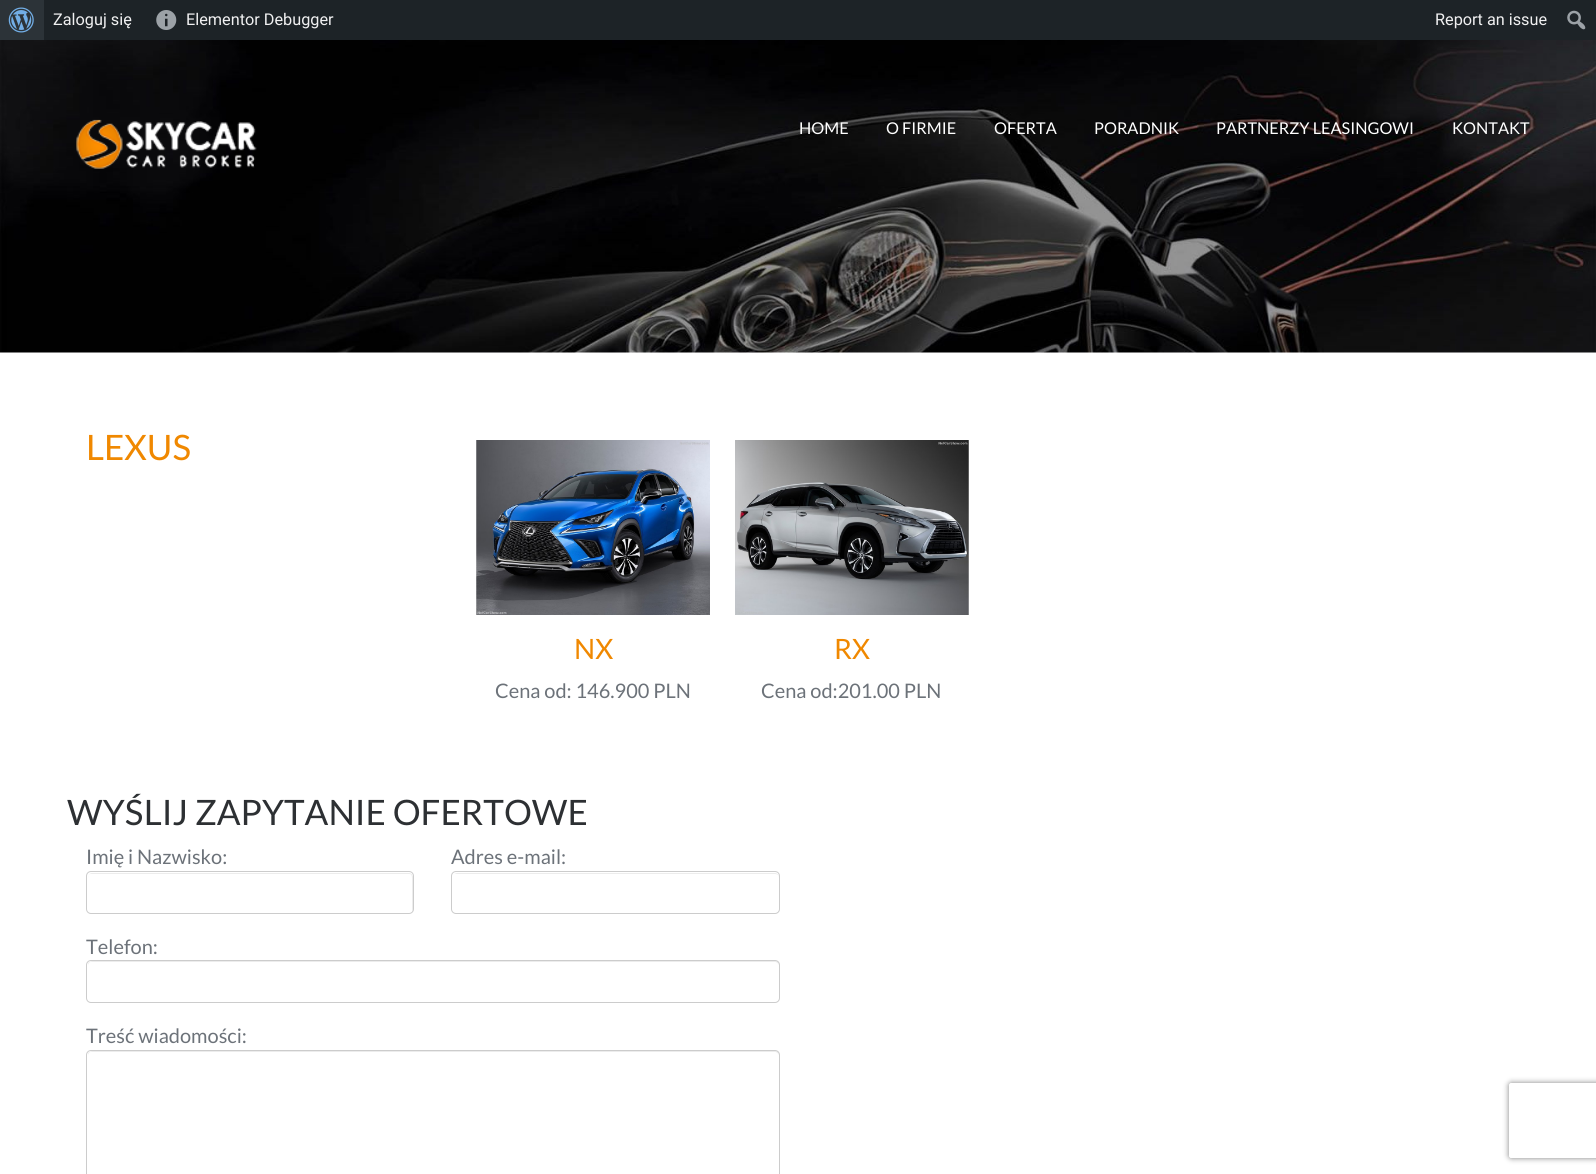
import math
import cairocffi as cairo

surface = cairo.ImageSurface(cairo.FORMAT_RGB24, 1596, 1174)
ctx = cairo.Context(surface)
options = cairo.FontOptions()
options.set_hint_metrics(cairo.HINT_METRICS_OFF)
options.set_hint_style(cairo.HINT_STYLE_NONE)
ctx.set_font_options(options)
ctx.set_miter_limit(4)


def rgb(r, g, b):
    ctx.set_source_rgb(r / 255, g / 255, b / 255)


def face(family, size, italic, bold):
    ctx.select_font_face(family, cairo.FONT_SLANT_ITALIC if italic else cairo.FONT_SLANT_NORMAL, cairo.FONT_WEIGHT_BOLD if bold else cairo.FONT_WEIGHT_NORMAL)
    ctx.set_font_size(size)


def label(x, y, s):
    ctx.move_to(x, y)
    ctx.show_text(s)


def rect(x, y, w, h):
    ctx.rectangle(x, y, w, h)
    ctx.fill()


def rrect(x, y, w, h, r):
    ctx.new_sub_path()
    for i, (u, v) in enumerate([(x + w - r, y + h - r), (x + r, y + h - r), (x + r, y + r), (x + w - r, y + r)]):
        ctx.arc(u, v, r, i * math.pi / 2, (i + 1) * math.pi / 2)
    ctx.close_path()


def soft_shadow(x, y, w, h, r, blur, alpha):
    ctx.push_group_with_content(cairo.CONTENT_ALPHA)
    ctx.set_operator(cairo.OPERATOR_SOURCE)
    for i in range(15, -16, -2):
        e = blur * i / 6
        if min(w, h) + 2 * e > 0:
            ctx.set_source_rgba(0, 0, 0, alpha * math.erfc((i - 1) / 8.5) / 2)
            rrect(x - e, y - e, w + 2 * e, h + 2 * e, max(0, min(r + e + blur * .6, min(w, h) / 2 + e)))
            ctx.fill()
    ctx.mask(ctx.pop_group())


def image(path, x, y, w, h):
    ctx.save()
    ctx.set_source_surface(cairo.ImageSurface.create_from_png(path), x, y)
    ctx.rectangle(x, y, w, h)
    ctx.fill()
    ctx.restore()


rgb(255, 255, 255)
ctx.paint()
rgb(29, 35, 39)
rect(44, 0, 1552, 40)
rgb(44, 51, 56)
rect(0, 0, 44, 40)
image('image0.png', 8, 7, 26, 26)
face('Roboto', 16.25, 0, 0)
rgb(240, 240, 241)
label(53, 25, 'Zaloguj się')
image('image1.png', 156, 10, 21, 20)
label(186, 25, 'Elementor Debugger')
label(1435, 25, 'Report an issue')
image('image2.png', 1567, 10, 19, 20)
image('image3.png', 0, 40, 1596, 313)
image('image4.png', 76, 119, 181, 50)
face('Lato', 16.25, 0, 0)
rgb(255, 255, 255)
label(799, 134, 'HOME')
label(886, 134, 'O FIRMIE')
label(994, 134, 'OFERTA')
label(1094, 134, 'PORADNIK')
label(1216, 134, 'PARTNERZY LEASINGOWI')
label(1452, 134, 'KONTAKT')
face('Lato', 35, 0, 0)
rgb(240, 136, 0)
label(86, 460, 'LEXUS')
image('image5.png', 476, 440, 234, 175)
face('Lato', 28, 0, 0)
label(574, 659, 'NX')
face('Lato', 20, 0, 0)
rgb(108, 114, 121)
label(495, 698, 'Cena od: 146.900 PLN')
image('image6.png', 735, 440, 234, 175)
face('Lato', 28, 0, 0)
rgb(240, 136, 0)
label(834, 659, 'RX')
face('Lato', 20, 0, 0)
rgb(108, 114, 121)
label(761, 698, 'Cena od:201.00 PLN')
face('Lato', 35, 0, 0)
rgb(45, 48, 51)
label(67, 825, 'WYŚLIJ ZAPYTANIE OFERTOWE')
face('Lato', 20, 0, 0)
rgb(108, 114, 121)
label(86, 864, 'Imię i Nazwisko:')
rgb(236, 236, 236)
ctx.new_path()
ctx.move_to(91, 874)
ctx.line_to(409, 874)
ctx.curve_to(411, 874, 412, 875, 412, 878)
ctx.line_to(412, 912)
ctx.curve_to(412, 911, 413, 910, 413, 909)
ctx.line_to(413, 877)
ctx.curve_to(413, 875, 411, 873, 409, 873)
ctx.line_to(92, 873)
ctx.curve_to(90, 873, 88, 875, 88, 877)
ctx.line_to(88, 878)
ctx.curve_to(88, 875, 89, 874, 91, 874)
ctx.close_path()
ctx.fill()
rrect(86.5, 871.5, 327, 42, 4.5)
rgb(204, 204, 204)
ctx.set_line_width(1)
ctx.stroke()
rgb(108, 114, 121)
label(451, 864, 'Adres e-mail:')
rgb(236, 236, 236)
ctx.new_path()
ctx.move_to(456, 874)
ctx.line_to(775, 874)
ctx.curve_to(777, 874, 779, 875, 779, 878)
ctx.line_to(779, 877)
ctx.curve_to(779, 875, 777, 873, 775, 873)
ctx.line_to(457, 873)
ctx.curve_to(456, 873, 455, 874, 454, 874)
ctx.close_path()
ctx.fill()
rrect(451.5, 871.5, 328, 42, 4.5)
rgb(204, 204, 204)
ctx.stroke()
rgb(108, 114, 121)
label(86, 954, 'Telefon:')
rgb(236, 236, 236)
ctx.new_path()
ctx.move_to(91, 962)
ctx.line_to(775, 962)
ctx.curve_to(777, 962, 779, 964, 779, 966)
ctx.curve_to(779, 963, 778, 961, 775, 961)
ctx.line_to(92, 961)
ctx.line_to(89, 962)
ctx.line_to(88, 963)
ctx.line_to(88, 966)
ctx.curve_to(88, 964, 89, 962, 91, 962)
ctx.close_path()
ctx.fill()
rrect(86.5, 960.5, 693, 42, 4.5)
rgb(204, 204, 204)
ctx.stroke()
rgb(108, 114, 121)
label(86, 1043, 'Treść wiadomości:')
rgb(236, 236, 236)
ctx.new_path()
ctx.move_to(91, 1052)
ctx.line_to(775, 1052)
ctx.curve_to(777, 1052, 779, 1054, 779, 1056)
ctx.curve_to(779, 1053, 778, 1051, 775, 1051)
ctx.line_to(92, 1051)
ctx.line_to(89, 1052)
ctx.line_to(88, 1053)
ctx.line_to(88, 1056)
ctx.curve_to(88, 1054, 89, 1052, 91, 1052)
ctx.close_path()
ctx.fill()
rrect(86.5, 1050.5, 693, 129, 4.5)
rgb(204, 204, 204)
ctx.stroke()
ctx.save()
ctx.set_fill_rule(cairo.FILL_RULE_EVEN_ODD)
ctx.new_path()
ctx.move_to(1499, 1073)
ctx.line_to(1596, 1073)
ctx.line_to(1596, 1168)
ctx.line_to(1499, 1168)
ctx.close_path()
ctx.move_to(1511.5, 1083)
ctx.line_to(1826.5, 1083)
ctx.curve_to(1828, 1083, 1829, 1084, 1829, 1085.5)
ctx.line_to(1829, 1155.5)
ctx.curve_to(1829, 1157, 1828, 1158, 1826.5, 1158)
ctx.line_to(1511.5, 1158)
ctx.curve_to(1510, 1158, 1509, 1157, 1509, 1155.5)
ctx.line_to(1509, 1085.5)
ctx.curve_to(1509, 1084, 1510, 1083, 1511.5, 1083)
ctx.close_path()
ctx.clip()
rgb(128, 128, 128)
soft_shadow(1509, 1083, 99, 75, 2.5, 3, 1)
ctx.restore()
surface.write_to_png('render.png')
